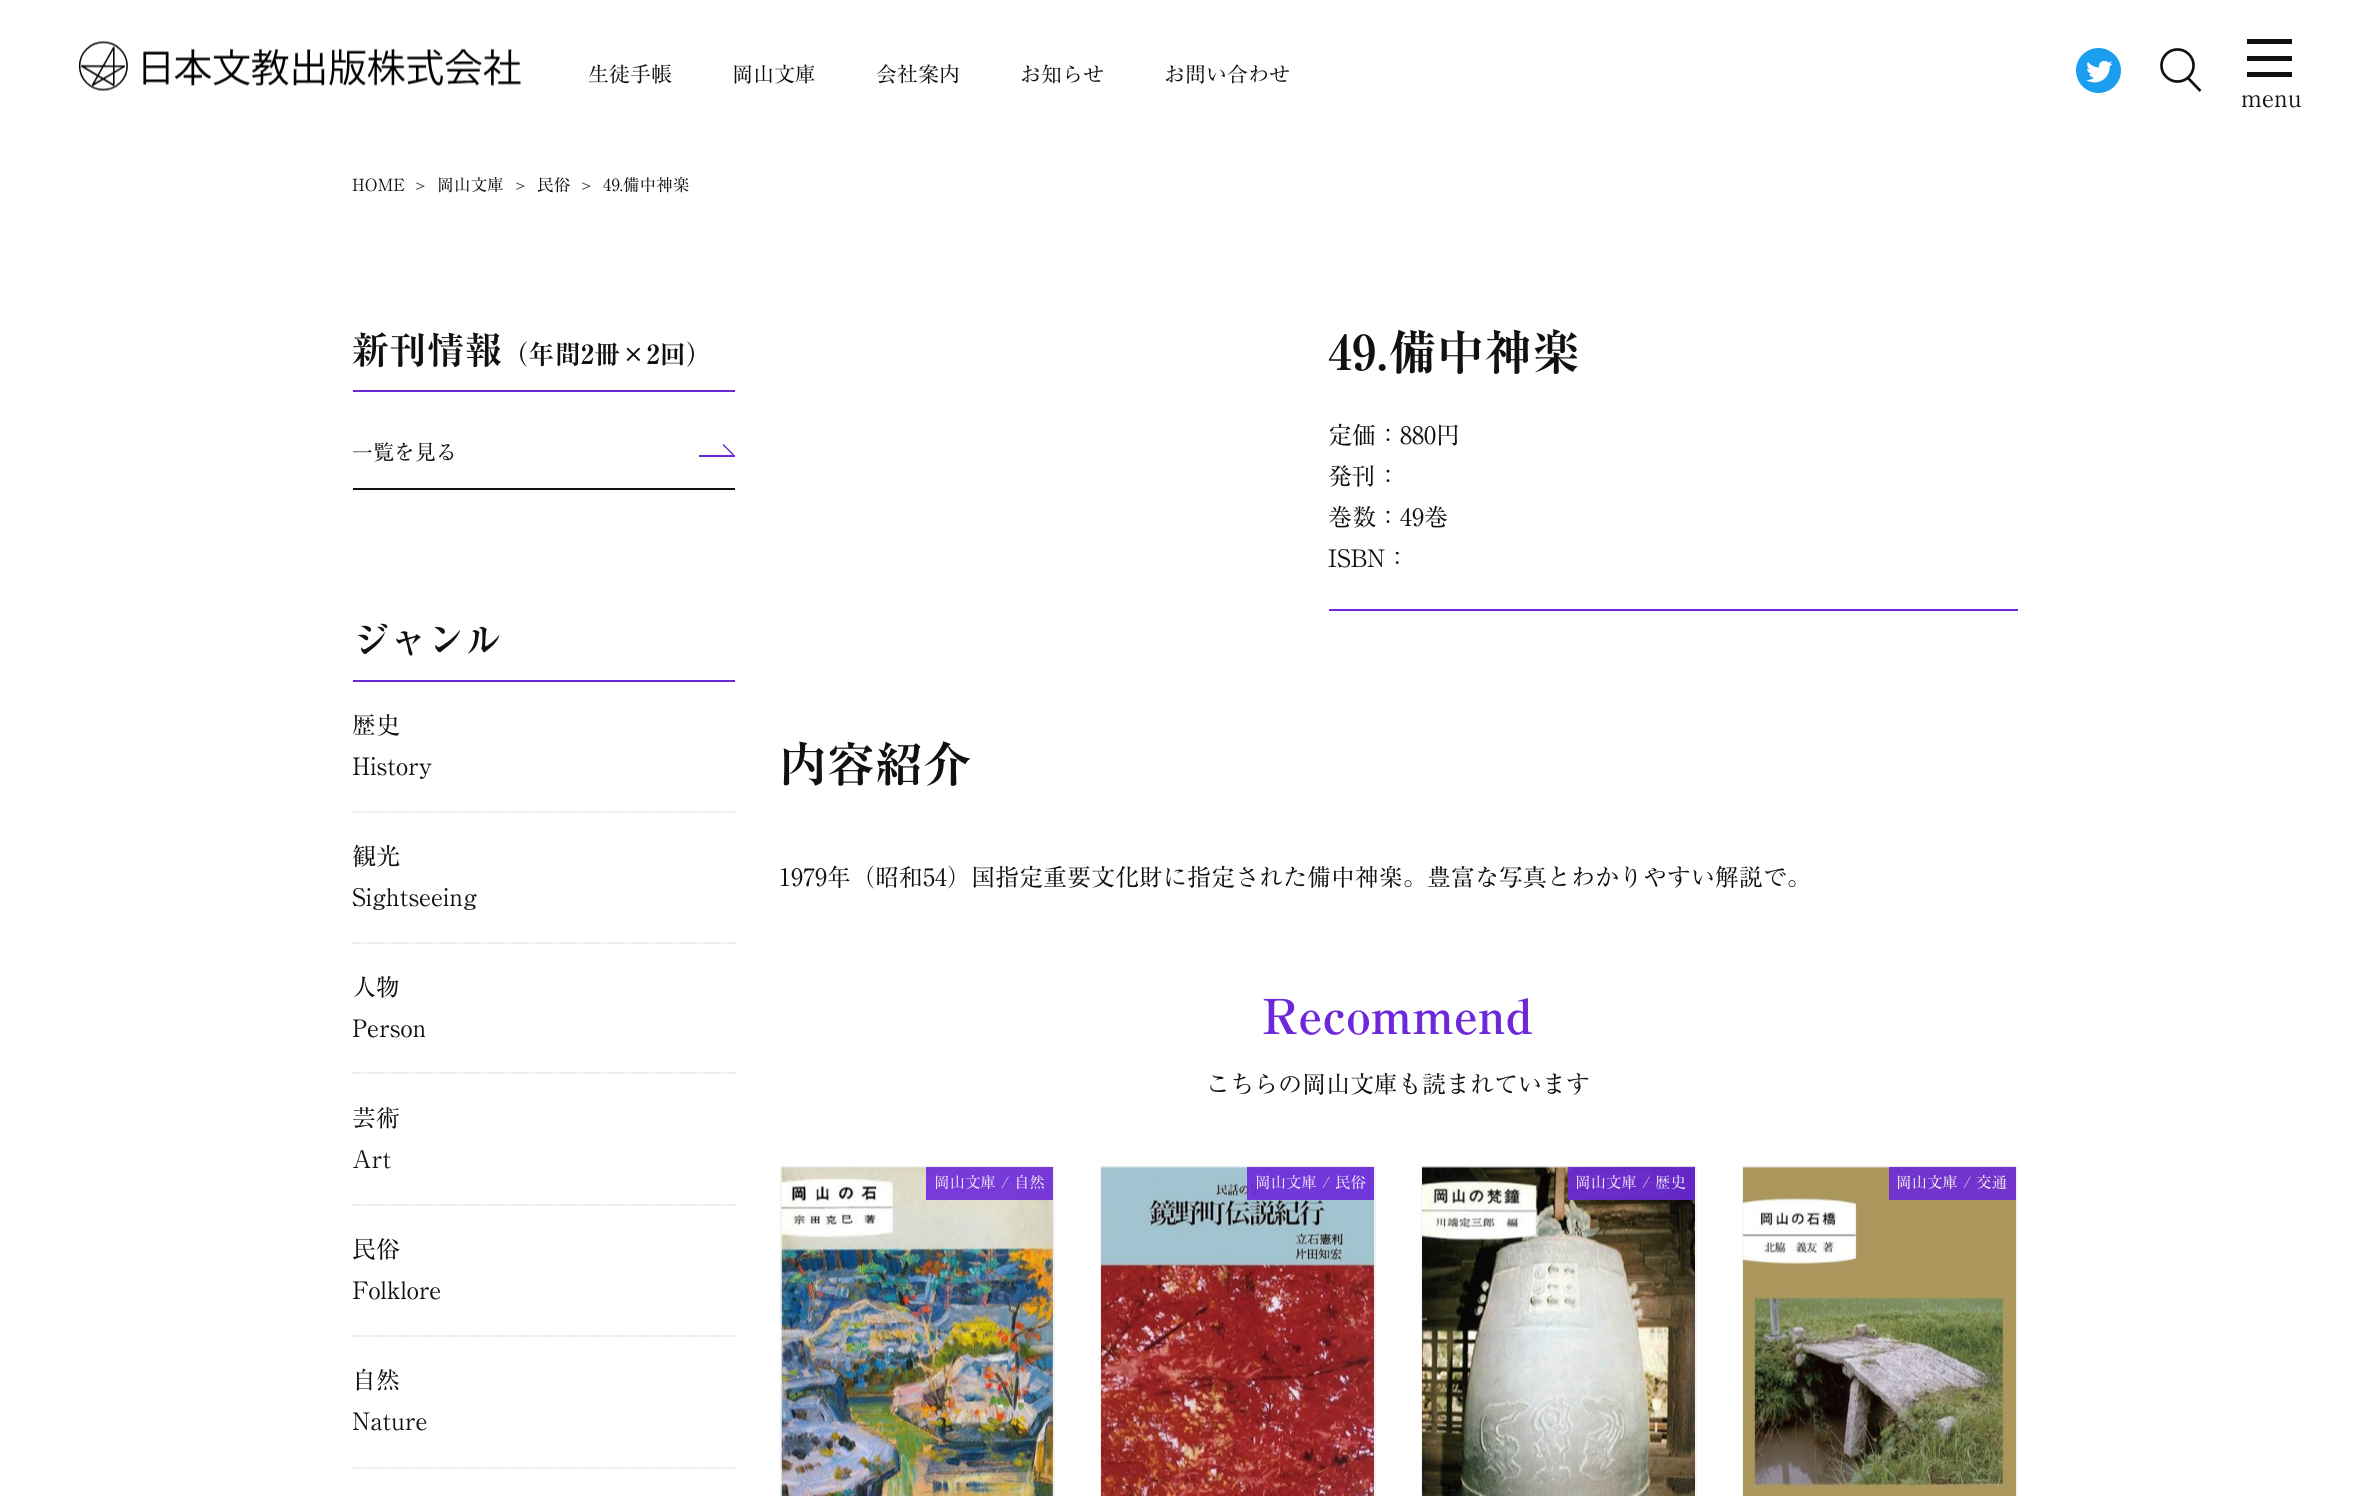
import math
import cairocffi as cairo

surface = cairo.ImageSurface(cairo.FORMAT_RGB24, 2368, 1496)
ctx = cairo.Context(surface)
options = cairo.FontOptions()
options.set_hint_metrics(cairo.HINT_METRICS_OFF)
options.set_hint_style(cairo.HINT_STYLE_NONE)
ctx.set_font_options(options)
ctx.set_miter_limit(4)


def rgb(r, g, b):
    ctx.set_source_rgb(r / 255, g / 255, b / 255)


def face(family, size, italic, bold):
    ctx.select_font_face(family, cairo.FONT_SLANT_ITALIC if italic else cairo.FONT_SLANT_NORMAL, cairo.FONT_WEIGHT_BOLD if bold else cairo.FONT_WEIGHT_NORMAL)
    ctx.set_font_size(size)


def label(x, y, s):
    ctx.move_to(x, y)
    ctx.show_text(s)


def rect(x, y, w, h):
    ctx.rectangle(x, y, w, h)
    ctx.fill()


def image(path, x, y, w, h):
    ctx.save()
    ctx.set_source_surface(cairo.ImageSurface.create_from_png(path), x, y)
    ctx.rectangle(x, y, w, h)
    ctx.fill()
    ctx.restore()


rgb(255, 255, 255)
ctx.paint()
image('image0.png', 78, 41, 443, 50)
face('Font', 21, 0, 0)
rgb(17, 17, 17)
label(588, 82, '生徒手帳')
label(732, 82, '岡山文庫')
label(876, 82, '会社案内')
label(1020, 82, 'お知らせ')
label(1164, 82, 'お問い合わせ')
image('image1.png', 2076, 48, 45, 45)
ctx.arc(2177.5, 65.5, 16, 0, 2 * math.pi)
ctx.set_line_width(2.7)
ctx.stroke()
ctx.new_path()
ctx.move_to(2188, 78)
ctx.line_to(2200.5, 91)
ctx.stroke()
rect(2247, 39, 45, 5)
rect(2247, 56, 45, 5)
rect(2247, 72, 45, 5)
face('Font', 24, 0, 0)
label(2241, 107, 'menu')
face('Font', 16.75, 0, 0)
label(352, 191, 'HOME')
face('WenQuanYi Zen Hei Medium', 16.75, 0, 0)
rgb(62, 62, 62)
label(412, 191, '＞')
face('Font', 16.75, 0, 0)
rgb(17, 17, 17)
label(437, 191, '岡山文庫')
face('WenQuanYi Zen Hei Medium', 16.75, 0, 0)
rgb(62, 62, 62)
label(512, 191, '＞')
face('Font', 16.75, 0, 0)
rgb(17, 17, 17)
label(537, 191, '民俗')
face('WenQuanYi Zen Hei Medium', 16.75, 0, 0)
rgb(62, 62, 62)
label(578, 191, '＞')
face('Font', 16.75, 0, 0)
rgb(17, 17, 17)
label(603, 191, '49.備中神楽')
rgb(109, 40, 217)
rect(353, 390, 382, 2)
face('Font Medium', 37.5, 0, 0)
rgb(17, 17, 17)
label(352, 364, '新刊情報')
face('Font Medium', 26.25, 0, 0)
label(502, 364, '（年間2冊×2回）')
rect(353, 488, 382, 2)
face('Font', 21, 0, 0)
label(352, 460, '一覧を見る')
rgb(109, 40, 217)
ctx.new_path()
ctx.move_to(723.5, 444)
ctx.line_to(734, 454.5)
ctx.line_to(733, 455.5)
ctx.line_to(722.5, 445)
ctx.close_path()
ctx.fill()
rect(699, 455, 36, 2)
rect(353, 680, 382, 2)
face('Font Medium', 37.5, 0, 0)
rgb(17, 17, 17)
label(352, 654, 'ジャンル')
ctx.new_path()
ctx.move_to(352.5, 812)
ctx.line_to(735, 812)
rgb(216, 216, 216)
ctx.set_line_width(1.5)
ctx.set_dash([1.5, 1.5])
ctx.stroke()
face('Font', 24, 0, 0)
rgb(17, 17, 17)
label(352, 734, '歴史')
ctx.save()
ctx.rectangle(353, 681, 382, 131)
ctx.clip()
label(352, 775, 'History')
ctx.restore()
ctx.new_path()
ctx.move_to(352.5, 943)
ctx.line_to(735, 943)
rgb(216, 216, 216)
ctx.stroke()
rgb(17, 17, 17)
label(352, 865, '観光')
label(352, 906, 'Sightseeing')
ctx.new_path()
ctx.move_to(352.5, 1073)
ctx.line_to(735, 1073)
rgb(216, 216, 216)
ctx.stroke()
rgb(17, 17, 17)
label(352, 996, '人物')
ctx.save()
ctx.rectangle(353, 944, 382, 129)
ctx.clip()
label(352, 1037, 'Person')
ctx.restore()
ctx.new_path()
ctx.move_to(352.5, 1205)
ctx.line_to(735, 1205)
rgb(216, 216, 216)
ctx.stroke()
rgb(17, 17, 17)
label(352, 1127, '芸術')
label(352, 1168, 'Art')
ctx.new_path()
ctx.move_to(352.5, 1336)
ctx.line_to(735, 1336)
rgb(216, 216, 216)
ctx.stroke()
rgb(17, 17, 17)
label(352, 1258, '民俗')
ctx.save()
ctx.rectangle(353, 1206, 382, 129)
ctx.clip()
label(352, 1299, 'Folklore')
ctx.restore()
ctx.new_path()
ctx.move_to(352.5, 1468)
ctx.line_to(735, 1468)
rgb(216, 216, 216)
ctx.stroke()
rgb(17, 17, 17)
label(352, 1389, '自然')
ctx.save()
ctx.rectangle(353, 1337, 382, 130)
ctx.clip()
label(352, 1430, 'Nature')
ctx.restore()
face('Font Medium', 48, 0, 0)
label(1328, 370, '49.備中神楽')
face('Font', 24, 0, 0)
label(1328, 444, '定価：880円')
label(1328, 485, '発刊：')
label(1328, 526, '巻数：49巻')
label(1328, 567, 'ISBN：')
rgb(109, 40, 217)
rect(1329, 609, 689, 2)
face('Font Medium', 48, 0, 0)
rgb(17, 17, 17)
label(779, 782, '内容紹介')
face('Font', 24, 0, 0)
label(779, 886, '1979年（昭和54）国指定重要文化財に指定された備中神楽。豊富な写真とわかりやすい解説で。')
face('Font Medium', 48, 0, 0)
rgb(109, 40, 217)
label(1262, 1034, 'Recommend')
face('Font', 24, 0, 0)
rgb(17, 17, 17)
label(1206, 1093, 'こちらの岡山文庫も読まれています')
ctx.rectangle(781, 1167, 273, 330)
rgb(242, 242, 242)
ctx.set_line_width(2)
ctx.set_dash([])
ctx.stroke()
image('image2.png', 781, 1166, 272, 330)
ctx.set_source_rgba(0.427, 0.157, 0.851, 0.9)
rect(926, 1167, 127, 33)
face('Font', 15.5, 0, 0)
rgb(242, 235, 251)
label(934, 1188, '岡山文庫 / 自然')
ctx.rectangle(1101, 1167, 274, 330)
rgb(242, 242, 242)
ctx.stroke()
image('image3.png', 1101, 1166, 273, 330)
ctx.set_source_rgba(0.427, 0.157, 0.851, 0.9)
rect(1247, 1167, 127, 33)
rgb(242, 235, 251)
label(1255, 1188, '岡山文庫 / 民俗')
ctx.rectangle(1422, 1167, 274, 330)
rgb(242, 242, 242)
ctx.stroke()
image('image4.png', 1422, 1166, 273, 330)
ctx.set_source_rgba(0.427, 0.157, 0.851, 0.9)
rect(1568, 1167, 127, 33)
rgb(242, 235, 251)
label(1575, 1188, '岡山文庫 / 歴史')
ctx.rectangle(1743, 1167, 274, 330)
rgb(242, 242, 242)
ctx.stroke()
image('image5.png', 1743, 1166, 273, 330)
ctx.set_source_rgba(0.427, 0.157, 0.851, 0.9)
rect(1889, 1167, 127, 33)
rgb(247, 245, 239)
label(1896, 1188, '岡山文庫 / 交通')
surface.write_to_png('render.png')
